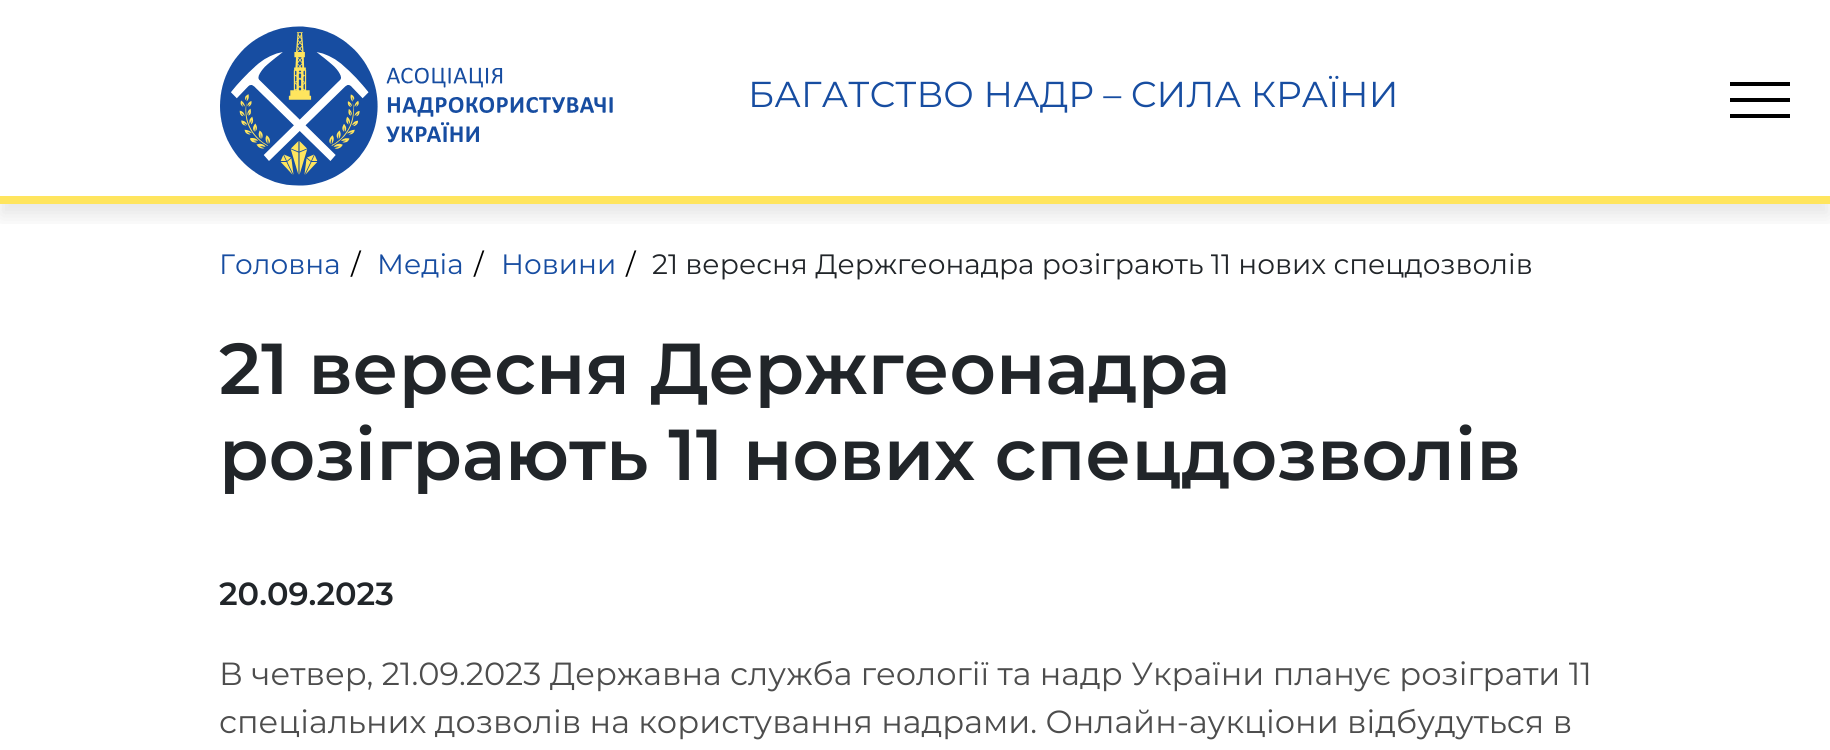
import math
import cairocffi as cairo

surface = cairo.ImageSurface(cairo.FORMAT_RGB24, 1830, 750)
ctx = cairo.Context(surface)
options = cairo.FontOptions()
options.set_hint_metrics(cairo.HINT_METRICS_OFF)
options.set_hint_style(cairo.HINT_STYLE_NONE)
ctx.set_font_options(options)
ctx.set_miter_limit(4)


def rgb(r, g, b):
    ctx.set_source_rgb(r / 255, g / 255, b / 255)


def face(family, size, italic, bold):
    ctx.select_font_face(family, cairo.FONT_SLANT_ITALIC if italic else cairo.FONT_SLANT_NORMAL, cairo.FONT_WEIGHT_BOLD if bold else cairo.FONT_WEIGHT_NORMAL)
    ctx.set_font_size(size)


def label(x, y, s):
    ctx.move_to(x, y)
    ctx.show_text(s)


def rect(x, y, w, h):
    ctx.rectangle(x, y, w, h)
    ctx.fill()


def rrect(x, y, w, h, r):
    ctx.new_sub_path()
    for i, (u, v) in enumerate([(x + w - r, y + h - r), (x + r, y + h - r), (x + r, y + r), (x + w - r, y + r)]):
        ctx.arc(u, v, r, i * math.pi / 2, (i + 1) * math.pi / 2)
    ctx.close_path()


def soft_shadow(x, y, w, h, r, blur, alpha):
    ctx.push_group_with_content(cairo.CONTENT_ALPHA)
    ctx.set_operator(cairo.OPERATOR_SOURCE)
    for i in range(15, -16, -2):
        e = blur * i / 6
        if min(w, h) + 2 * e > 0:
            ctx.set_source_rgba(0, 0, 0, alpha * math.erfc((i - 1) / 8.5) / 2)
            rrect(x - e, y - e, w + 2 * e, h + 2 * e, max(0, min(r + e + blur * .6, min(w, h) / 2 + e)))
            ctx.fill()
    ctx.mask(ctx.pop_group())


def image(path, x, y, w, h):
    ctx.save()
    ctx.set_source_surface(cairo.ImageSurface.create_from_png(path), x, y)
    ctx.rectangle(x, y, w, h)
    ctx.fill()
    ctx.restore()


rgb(255, 255, 255)
ctx.paint()
ctx.save()
ctx.rectangle(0, 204, 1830, 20)
ctx.clip()
rgb(0, 0, 0)
soft_shadow(0, 20, 1830, 196, 0, 10, 0.1)
ctx.restore()
image('image0.png', 220, 26, 393, 160)
face('Montserrat', 36, 0, 0)
rgb(23, 77, 161)
label(748, 107, 'БАГАТСТВО НАДР – СИЛА КРАЇНИ')
rgb(0, 0, 0)
rect(1730, 82, 60, 4)
rect(1730, 98, 60, 4)
rect(1730, 114, 60, 4)
rgb(255, 229, 94)
rect(0, 196, 1830, 8)
face('Montserrat', 28, 0, 0)
rgb(23, 77, 161)
label(219, 274, 'Головна')
rgb(0, 0, 0)
label(351, 274, '/')
rgb(23, 77, 161)
label(377, 274, 'Медіа')
rgb(0, 0, 0)
label(474, 274, '/')
rgb(23, 77, 161)
label(501, 274, 'Новини')
rgb(0, 0, 0)
label(626, 274, '/')
rgb(33, 37, 41)
label(652, 274, '21 вересня Держгеонадра розіграють 11 нових спецдозволів')
face('Montserrat SemiBold', 72, 0, 0)
label(219, 394, '21 вересня Держгеонадра')
label(219, 480, 'розіграють 11 нових спецдозволів')
face('Montserrat SemiBold', 32, 0, 0)
label(219, 605, '20.09.2023')
face('Montserrat', 32, 0, 0)
rgb(77, 77, 77)
label(219, 685, 'В четвер, 21.09.2023 Державна служба геології та надр України планує розіграти 11')
label(219, 733, 'спеціальних дозволів на користування надрами. Онлайн-аукціони відбудуться в')
surface.write_to_png('render.png')
